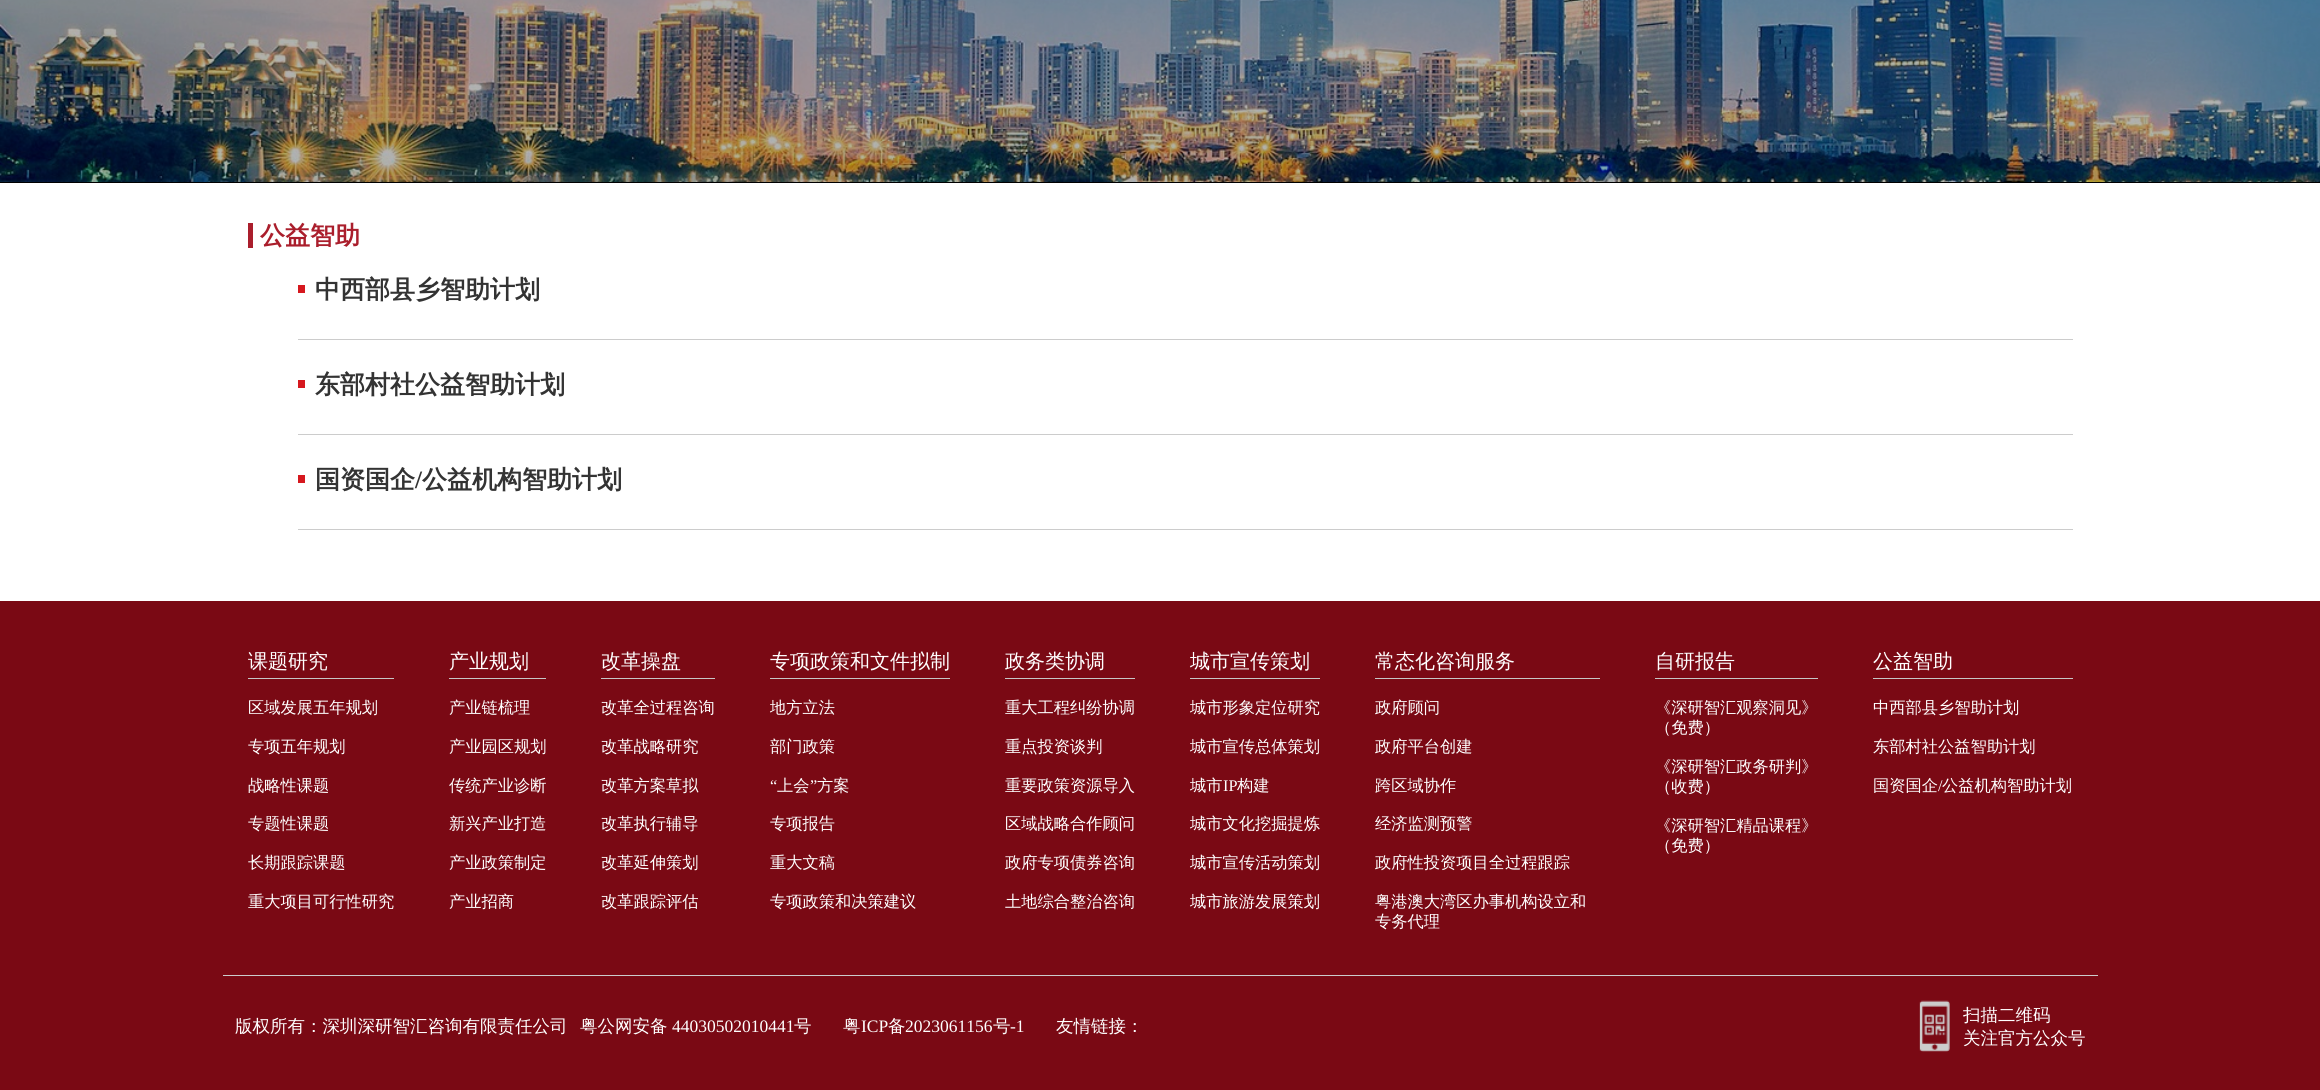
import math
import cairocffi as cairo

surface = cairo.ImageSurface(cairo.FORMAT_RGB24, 2320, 1090)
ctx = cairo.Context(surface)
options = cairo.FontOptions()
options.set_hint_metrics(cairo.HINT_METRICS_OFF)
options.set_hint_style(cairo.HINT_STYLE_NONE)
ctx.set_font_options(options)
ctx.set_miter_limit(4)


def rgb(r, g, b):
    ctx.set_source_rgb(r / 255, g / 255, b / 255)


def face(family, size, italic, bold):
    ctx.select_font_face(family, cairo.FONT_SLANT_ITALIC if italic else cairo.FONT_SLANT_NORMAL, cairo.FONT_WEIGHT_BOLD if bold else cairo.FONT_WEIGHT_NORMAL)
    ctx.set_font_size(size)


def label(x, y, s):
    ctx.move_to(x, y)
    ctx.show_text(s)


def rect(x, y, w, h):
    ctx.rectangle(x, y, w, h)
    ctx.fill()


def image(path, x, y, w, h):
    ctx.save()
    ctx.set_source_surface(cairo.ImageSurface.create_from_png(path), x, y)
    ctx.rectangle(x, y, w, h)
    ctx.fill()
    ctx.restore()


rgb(255, 255, 255)
ctx.paint()
rgb(0, 0, 0)
rect(0, 0, 2320, 183)
image('image0.png', 0, 0, 2320, 182)
rgb(170, 30, 44)
rect(248, 223, 5, 25)
face('WenQuanYi Zen Hei', 25, 0, 1)
label(260, 244, '公益智助')
rgb(204, 204, 204)
rect(298, 339, 1775, 1)
rgb(214, 24, 30)
rect(298, 285, 7, 8)
rgb(51, 51, 51)
label(315, 298, '中西部县乡智助计划')
rgb(204, 204, 204)
rect(298, 434, 1775, 1)
rgb(214, 24, 30)
rect(298, 380, 7, 8)
rgb(51, 51, 51)
label(315, 393, '东部村社公益智助计划')
rgb(204, 204, 204)
rect(298, 529, 1775, 1)
rgb(214, 24, 30)
rect(298, 475, 7, 8)
rgb(51, 51, 51)
label(315, 488, '国资国企')
face('Liberation Serif', 25, 0, 1)
label(415, 488, '/')
face('WenQuanYi Zen Hei', 25, 0, 1)
label(422, 488, '公益机构智助计划')
rgb(122, 9, 20)
rect(0, 601, 2320, 489)
rgb(198, 198, 198)
rect(248, 678, 146, 1)
face('WenQuanYi Zen Hei Medium', 20, 0, 0)
rgb(255, 255, 255)
label(248, 668, '课题研究')
face('WenQuanYi Zen Hei Medium', 16.25, 0, 0)
label(248, 713, '区域发展五年规划')
label(248, 752, '专项五年规划')
label(248, 791, '战略性课题')
label(248, 829, '专题性课题')
label(248, 868, '长期跟踪课题')
label(248, 907, '重大项目可行性研究')
rgb(198, 198, 198)
rect(449, 678, 97, 1)
face('WenQuanYi Zen Hei Medium', 20, 0, 0)
rgb(255, 255, 255)
label(449, 668, '产业规划')
face('WenQuanYi Zen Hei Medium', 16.25, 0, 0)
label(449, 713, '产业链梳理')
label(449, 752, '产业园区规划')
label(449, 791, '传统产业诊断')
label(449, 829, '新兴产业打造')
label(449, 868, '产业政策制定')
label(449, 907, '产业招商')
rgb(198, 198, 198)
rect(601, 678, 114, 1)
face('WenQuanYi Zen Hei Medium', 20, 0, 0)
rgb(255, 255, 255)
label(601, 668, '改革操盘')
face('WenQuanYi Zen Hei Medium', 16.25, 0, 0)
label(601, 713, '改革全过程咨询')
label(601, 752, '改革战略研究')
label(601, 791, '改革方案草拟')
label(601, 829, '改革执行辅导')
label(601, 868, '改革延伸策划')
label(601, 907, '改革跟踪评估')
rgb(198, 198, 198)
rect(770, 678, 180, 1)
face('WenQuanYi Zen Hei Medium', 20, 0, 0)
rgb(255, 255, 255)
label(770, 668, '专项政策和文件拟制')
face('WenQuanYi Zen Hei Medium', 16.25, 0, 0)
label(770, 713, '地方立法')
label(770, 752, '部门政策')
face('Liberation Serif', 16.25, 0, 0)
label(770, 791, '“')
face('WenQuanYi Zen Hei Medium', 16.25, 0, 0)
label(777, 791, '上会')
face('Liberation Serif', 16.25, 0, 0)
label(810, 791, '”')
face('WenQuanYi Zen Hei Medium', 16.25, 0, 0)
label(817, 791, '方案')
label(770, 829, '专项报告')
label(770, 868, '重大文稿')
label(770, 907, '专项政策和决策建议')
rgb(198, 198, 198)
rect(1005, 678, 130, 1)
face('WenQuanYi Zen Hei Medium', 20, 0, 0)
rgb(255, 255, 255)
label(1005, 668, '政务类协调')
face('WenQuanYi Zen Hei Medium', 16.25, 0, 0)
label(1005, 713, '重大工程纠纷协调')
label(1005, 752, '重点投资谈判')
label(1005, 791, '重要政策资源导入')
label(1005, 829, '区域战略合作顾问')
label(1005, 868, '政府专项债券咨询')
label(1005, 907, '土地综合整治咨询')
rgb(198, 198, 198)
rect(1190, 678, 130, 1)
face('WenQuanYi Zen Hei Medium', 20, 0, 0)
rgb(255, 255, 255)
label(1190, 668, '城市宣传策划')
face('WenQuanYi Zen Hei Medium', 16.25, 0, 0)
label(1190, 713, '城市形象定位研究')
label(1190, 752, '城市宣传总体策划')
label(1190, 791, '城市')
face('Liberation Serif', 16.25, 0, 0)
label(1223, 791, 'IP')
face('WenQuanYi Zen Hei Medium', 16.25, 0, 0)
label(1237, 791, '构建')
label(1190, 829, '城市文化挖掘提炼')
label(1190, 868, '城市宣传活动策划')
label(1190, 907, '城市旅游发展策划')
rgb(198, 198, 198)
rect(1375, 678, 225, 1)
face('WenQuanYi Zen Hei Medium', 20, 0, 0)
rgb(255, 255, 255)
label(1375, 668, '常态化咨询服务')
face('WenQuanYi Zen Hei Medium', 16.25, 0, 0)
label(1375, 713, '政府顾问')
label(1375, 752, '政府平台创建')
label(1375, 791, '跨区域协作')
label(1375, 829, '经济监测预警')
label(1375, 868, '政府性投资项目全过程跟踪')
label(1375, 907, '粤港澳大湾区办事机构设立和')
label(1375, 927, '专务代理')
rgb(198, 198, 198)
rect(1655, 678, 163, 1)
face('WenQuanYi Zen Hei Medium', 20, 0, 0)
rgb(255, 255, 255)
label(1655, 668, '自研报告')
face('WenQuanYi Zen Hei Medium', 16.25, 0, 0)
label(1655, 713, '《深研智汇观察洞见》')
label(1655, 733, '（免费）')
label(1655, 772, '《深研智汇政务研判》')
label(1655, 792, '（收费）')
label(1655, 831, '《深研智汇精品课程》')
label(1655, 851, '（免费）')
rgb(198, 198, 198)
rect(1873, 678, 200, 1)
face('WenQuanYi Zen Hei Medium', 20, 0, 0)
rgb(255, 255, 255)
label(1873, 668, '公益智助')
face('WenQuanYi Zen Hei Medium', 16.25, 0, 0)
label(1873, 713, '中西部县乡智助计划')
label(1873, 752, '东部村社公益智助计划')
label(1873, 791, '国资国企')
face('Liberation Serif', 16.25, 0, 0)
label(1938, 791, '/')
face('WenQuanYi Zen Hei Medium', 16.25, 0, 0)
label(1942, 791, '公益机构智助计划')
rgb(204, 204, 204)
rect(223, 975, 1875, 1)
face('WenQuanYi Zen Hei Medium', 17.5, 0, 0)
rgb(255, 255, 255)
label(235, 1032, '版权所有：深圳深研智汇咨询有限责任公司')
label(580, 1032, '粤公网安备')
face('Liberation Serif', 17.5, 0, 0)
label(672, 1032, '44030502010441')
face('WenQuanYi Zen Hei Medium', 17.5, 0, 0)
label(794, 1032, '号')
label(843, 1032, '粤')
face('Liberation Serif', 17.5, 0, 0)
label(861, 1032, 'ICP')
face('WenQuanYi Zen Hei Medium', 17.5, 0, 0)
label(888, 1032, '备')
face('Liberation Serif', 17.5, 0, 0)
label(905, 1032, '2023061156')
face('WenQuanYi Zen Hei Medium', 17.5, 0, 0)
label(993, 1032, '号')
face('Liberation Serif', 17.5, 0, 0)
label(1010, 1032, '-1')
face('WenQuanYi Zen Hei Medium', 17.5, 0, 0)
label(1056, 1032, '友情链接：')
image('image1.png', 1919, 1000, 31, 52)
label(1963, 1021, '扫描二维码')
label(1963, 1044, '关注官方公众号')
surface.write_to_png('render.png')
